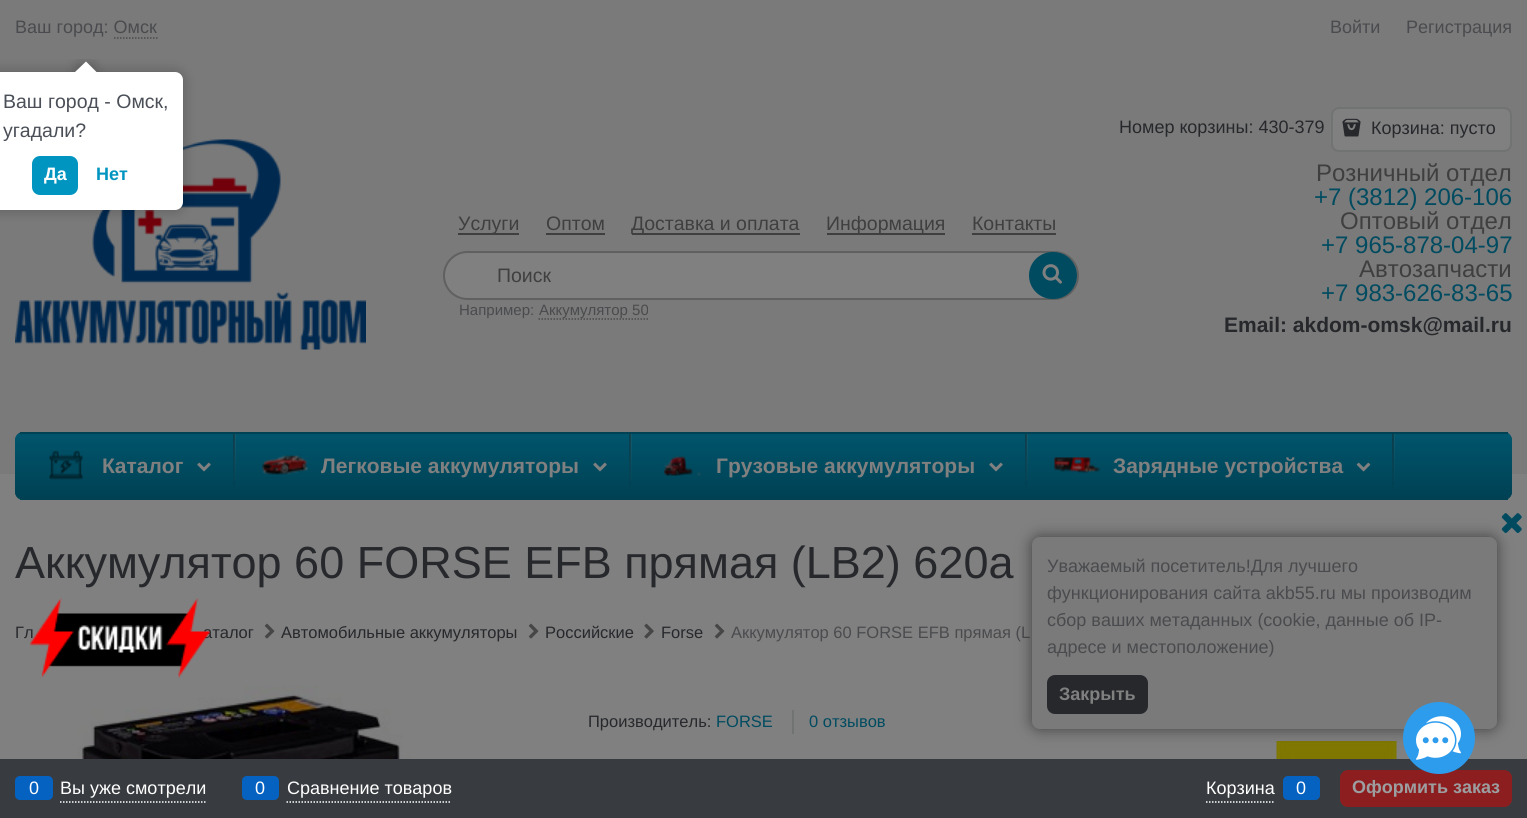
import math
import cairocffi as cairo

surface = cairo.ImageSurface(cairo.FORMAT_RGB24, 1527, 818)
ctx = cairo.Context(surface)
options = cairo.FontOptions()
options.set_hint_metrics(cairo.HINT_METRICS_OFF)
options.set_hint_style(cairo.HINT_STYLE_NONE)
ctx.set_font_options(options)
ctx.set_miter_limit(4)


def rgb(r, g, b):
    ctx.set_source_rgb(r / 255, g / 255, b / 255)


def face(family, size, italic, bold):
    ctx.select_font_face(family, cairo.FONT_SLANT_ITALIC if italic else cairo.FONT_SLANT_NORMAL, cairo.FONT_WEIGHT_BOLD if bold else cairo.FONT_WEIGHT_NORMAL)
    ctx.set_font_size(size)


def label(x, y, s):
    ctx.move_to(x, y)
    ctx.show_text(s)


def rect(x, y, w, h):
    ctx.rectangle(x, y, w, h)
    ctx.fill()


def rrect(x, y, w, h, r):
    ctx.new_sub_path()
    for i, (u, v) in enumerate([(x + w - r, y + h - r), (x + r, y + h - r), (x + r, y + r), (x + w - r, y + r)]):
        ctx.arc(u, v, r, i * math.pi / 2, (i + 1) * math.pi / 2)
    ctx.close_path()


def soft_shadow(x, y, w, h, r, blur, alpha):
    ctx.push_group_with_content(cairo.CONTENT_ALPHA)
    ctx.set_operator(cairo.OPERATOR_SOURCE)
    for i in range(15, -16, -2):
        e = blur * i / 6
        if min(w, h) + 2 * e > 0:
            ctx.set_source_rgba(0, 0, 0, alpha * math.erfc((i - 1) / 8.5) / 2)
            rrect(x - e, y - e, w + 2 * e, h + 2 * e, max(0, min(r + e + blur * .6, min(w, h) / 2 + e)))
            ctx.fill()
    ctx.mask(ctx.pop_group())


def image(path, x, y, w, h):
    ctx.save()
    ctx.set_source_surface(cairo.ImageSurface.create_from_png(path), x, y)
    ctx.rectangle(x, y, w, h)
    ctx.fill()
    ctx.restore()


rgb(128, 128, 128)
ctx.paint()
rgb(122, 122, 122)
rect(0, 0, 1527, 474)
face('Liberation Sans', 18, 0, 0)
rgb(74, 75, 78)
label(15, 33, 'Ваш город: Омск')
ctx.new_path()
ctx.move_to(114, 38)
ctx.line_to(157.5, 38)
ctx.set_line_width(1.5)
ctx.set_dash([1.5, 1.5])
ctx.stroke()
label(1330, 33, 'Войти')
label(1406, 33, 'Регистрация')
image('image0.png', 15, 139, 351, 211)
rgb(63, 63, 63)
rect(458, 233, 61, 2)
face('Liberation Sans', 19.5, 0, 0)
label(458, 230, 'Услуги')
label(546, 230, 'Оптом')
rect(546, 233, 59, 2)
rect(632, 233, 168, 2)
label(631, 230, 'Доставка и оплата')
rect(827, 233, 118, 2)
label(826, 230, 'Информация')
label(972, 230, 'Контакты')
rect(972, 233, 84, 2)
rgb(128, 128, 128)
rrect(444, 252, 634, 47, 23.5)
ctx.fill_preserve()
rgb(96, 96, 96)
ctx.set_line_width(2)
ctx.set_dash([])
ctx.stroke()
rgb(63, 63, 63)
label(497, 282, 'Поиск')
face('Liberation Sans', 15, 0, 0)
rgb(74, 75, 78)
label(459, 315, 'Например:')
ctx.new_path()
ctx.move_to(538.5, 319)
ctx.line_to(648, 319)
ctx.set_line_width(1.5)
ctx.set_dash([1.5, 1.5])
ctx.stroke()
label(539, 315, 'Аккумулятор 50')
rgb(0, 75, 96)
rrect(1029, 252, 48, 47, 23.5)
ctx.fill()
image('image1.png', 1042, 264, 20, 20)
face('Liberation Sans', 18, 0, 0)
rgb(38, 40, 44)
label(1119, 133, 'Номер корзины: 430-379')
rgb(128, 128, 128)
rrect(1332, 108, 179, 43, 7)
ctx.fill_preserve()
rgb(113, 114, 114)
ctx.set_line_width(2)
ctx.set_dash([])
ctx.stroke()
image('image2.png', 1342, 118, 19, 19)
rgb(38, 40, 44)
label(1371, 134, 'Корзина: пусто')
face('Liberation Sans', 24, 0, 0)
rgb(63, 63, 63)
label(1316, 181, 'Розничный отдел')
rgb(0, 75, 96)
label(1314, 205, '+7 (3812) 206-106')
rgb(63, 63, 63)
label(1340, 229, 'Оптовый отдел')
rgb(0, 75, 96)
label(1321, 253, '+7 965-878-04-97')
rgb(63, 63, 63)
label(1359, 277, 'Автозапчасти')
rgb(0, 75, 96)
label(1321, 301, '+7 983-626-83-65')
face('Liberation Sans', 21, 0, 1)
rgb(38, 40, 44)
label(1224, 332, 'Email: akdom-omsk@mail.ru')
gradient = cairo.LinearGradient(764, 432, 764, 500)
gradient.add_color_stop_rgba(0, 0, 0.333, 0.427, 1)
gradient.add_color_stop_rgba(0.5, 0, 0.294, 0.376, 1)
gradient.add_color_stop_rgba(1, 0, 0.255, 0.329, 1)
ctx.set_source(gradient)
rrect(15, 432, 1497, 68, 8)
ctx.fill()
ctx.save()
rrect(15, 432, 1497, 68, 9)
ctx.clip()
gradient = cairo.LinearGradient(764, 369, 764, 434)
gradient.add_color_stop_rgba(0, 0, 0.333, 0.427, 1)
gradient.add_color_stop_rgba(0.5, 0, 0.294, 0.376, 1)
gradient.add_color_stop_rgba(1, 0, 0.255, 0.329, 1)
ctx.set_source(gradient)
rect(15, 433, 1497, 1)
gradient = cairo.LinearGradient(764, 433, 764, 498)
gradient.add_color_stop_rgba(0, 0, 0.333, 0.427, 1)
gradient.add_color_stop_rgba(0.5, 0, 0.294, 0.376, 1)
gradient.add_color_stop_rgba(1, 0, 0.255, 0.329, 1)
ctx.set_source(gradient)
rect(15, 434, 1497, 64)
gradient = cairo.LinearGradient(764, 498, 764, 563)
gradient.add_color_stop_rgba(0, 0, 0.333, 0.427, 1)
gradient.add_color_stop_rgba(0.5, 0, 0.294, 0.376, 1)
gradient.add_color_stop_rgba(1, 0, 0.255, 0.329, 1)
ctx.set_source(gradient)
rect(15, 498, 1497, 1)
ctx.restore()
rgb(0, 65, 84)
rect(20, 432, 1488, 2)
rect(20, 498, 1488, 2)
image('image3.png', 49, 450, 34, 30)
rgb(128, 128, 128)
label(102, 473, 'Каталог')
image('image4.png', 197, 462, 14, 10)
gradient = cairo.LinearGradient(235, 434, 235, 500)
gradient.add_color_stop_rgba(0, 0.502, 0.502, 0.502, 0.14)
gradient.add_color_stop_rgba(0.72, 0.502, 0.502, 0.502, 0.02)
gradient.add_color_stop_rgba(1, 0.502, 0.502, 0.502, 0)
ctx.set_source(gradient)
rect(234, 434, 2, 47)
gradient = cairo.LinearGradient(233, 434, 233, 500)
gradient.add_color_stop_rgba(0, 0.114, 0.114, 0.114, 0.39)
gradient.add_color_stop_rgba(0.17, 0.114, 0.114, 0.114, 0.33)
gradient.add_color_stop_rgba(0.61, 0.114, 0.114, 0.114, 0.12)
gradient.add_color_stop_rgba(0.96, 0.114, 0.114, 0.114, 0.01)
gradient.add_color_stop_rgba(0.98, 0.502, 0.502, 0.502, 0.01)
gradient.add_color_stop_rgba(1, 0.502, 0.502, 0.502, 0)
ctx.set_source(gradient)
rect(233, 434, 2, 57)
image('image5.png', 262, 455, 46, 20)
rgb(128, 128, 128)
label(321, 473, 'Легковые аккумуляторы')
image('image4.png', 593, 462, 14, 10)
gradient = cairo.LinearGradient(631, 434, 631, 500)
gradient.add_color_stop_rgba(0, 0.502, 0.502, 0.502, 0.14)
gradient.add_color_stop_rgba(0.72, 0.502, 0.502, 0.502, 0.02)
gradient.add_color_stop_rgba(1, 0.502, 0.502, 0.502, 0)
ctx.set_source(gradient)
rect(630, 434, 2, 47)
gradient = cairo.LinearGradient(629, 434, 629, 500)
gradient.add_color_stop_rgba(0, 0.114, 0.114, 0.114, 0.39)
gradient.add_color_stop_rgba(0.17, 0.114, 0.114, 0.114, 0.33)
gradient.add_color_stop_rgba(0.61, 0.114, 0.114, 0.114, 0.12)
gradient.add_color_stop_rgba(0.96, 0.114, 0.114, 0.114, 0.01)
gradient.add_color_stop_rgba(0.98, 0.502, 0.502, 0.502, 0.01)
gradient.add_color_stop_rgba(1, 0.502, 0.502, 0.502, 0)
ctx.set_source(gradient)
rect(629, 434, 2, 57)
image('image6.png', 663, 455, 38, 21)
rgb(128, 128, 128)
label(716, 473, 'Грузовые аккумуляторы')
image('image4.png', 989, 462, 14, 10)
gradient = cairo.LinearGradient(1027, 434, 1027, 500)
gradient.add_color_stop_rgba(0, 0.502, 0.502, 0.502, 0.14)
gradient.add_color_stop_rgba(0.72, 0.502, 0.502, 0.502, 0.02)
gradient.add_color_stop_rgba(1, 0.502, 0.502, 0.502, 0)
ctx.set_source(gradient)
rect(1026, 434, 2, 47)
gradient = cairo.LinearGradient(1025, 434, 1025, 500)
gradient.add_color_stop_rgba(0, 0.114, 0.114, 0.114, 0.39)
gradient.add_color_stop_rgba(0.17, 0.114, 0.114, 0.114, 0.33)
gradient.add_color_stop_rgba(0.61, 0.114, 0.114, 0.114, 0.12)
gradient.add_color_stop_rgba(0.96, 0.114, 0.114, 0.114, 0.01)
gradient.add_color_stop_rgba(0.98, 0.502, 0.502, 0.502, 0.01)
gradient.add_color_stop_rgba(1, 0.502, 0.502, 0.502, 0)
ctx.set_source(gradient)
rect(1025, 434, 2, 57)
image('image7.png', 1054, 457, 46, 16)
rgb(128, 128, 128)
label(1113, 473, 'Зарядные устройства')
image('image8.png', 1356, 462, 15, 10)
gradient = cairo.LinearGradient(1394, 434, 1394, 500)
gradient.add_color_stop_rgba(0, 0.502, 0.502, 0.502, 0.14)
gradient.add_color_stop_rgba(0.72, 0.502, 0.502, 0.502, 0.02)
gradient.add_color_stop_rgba(1, 0.502, 0.502, 0.502, 0)
ctx.set_source(gradient)
rect(1394, 434, 1, 47)
gradient = cairo.LinearGradient(1393, 434, 1393, 500)
gradient.add_color_stop_rgba(0, 0.114, 0.114, 0.114, 0.39)
gradient.add_color_stop_rgba(0.17, 0.114, 0.114, 0.114, 0.33)
gradient.add_color_stop_rgba(0.61, 0.114, 0.114, 0.114, 0.12)
gradient.add_color_stop_rgba(0.96, 0.114, 0.114, 0.114, 0.01)
gradient.add_color_stop_rgba(0.98, 0.502, 0.502, 0.502, 0.01)
gradient.add_color_stop_rgba(1, 0.502, 0.502, 0.502, 0)
ctx.set_source(gradient)
rect(1392, 434, 2, 57)
face('Liberation Sans', 45, 0, 0)
rgb(38, 40, 44)
label(15, 578, 'Аккумулятор 60 FORSE EFB прямая (LB2) 620a')
face('Liberation Sans', 16.5, 0, 0)
label(15, 638, 'Гл')
label(203, 638, 'аталог')
image('image9.png', 264, 623, 11, 16)
label(281, 638, 'Автомобильные аккумуляторы')
image('image9.png', 528, 623, 11, 16)
label(545, 638, 'Российские')
image('image10.png', 644, 623, 10, 16)
label(661, 638, 'Forse')
image('image9.png', 714, 623, 11, 16)
rgb(74, 75, 78)
label(731, 638, 'Аккумулятор 60 FORSE EFB прямая (L')
image('image11.png', 78, 685, 333, 74)
rgb(38, 40, 44)
label(588, 727, 'Производитель:')
rgb(0, 75, 96)
label(716, 727, 'FORSE')
rgb(113, 114, 114)
rect(792, 710, 2, 24)
rgb(0, 75, 96)
label(809, 727, '0 отзывов')
image('image12.png', 1276, 741, 121, 18)
rgb(56, 60, 64)
rect(0, 759, 1527, 59)
ctx.new_path()
ctx.move_to(60, 802)
ctx.line_to(205.5, 802)
rgb(255, 255, 255)
ctx.set_line_width(1.5)
ctx.set_dash([1.5, 1.5])
ctx.stroke()
rgb(6, 98, 193)
rrect(15, 776, 38, 24, 5)
ctx.fill()
face('Liberation Sans', 18, 0, 0)
rgb(255, 255, 255)
label(29, 794, '0')
label(60, 794, 'Вы уже смотрели')
ctx.new_path()
ctx.move_to(286.5, 802)
ctx.line_to(451.5, 802)
ctx.stroke()
rgb(6, 98, 193)
rrect(242, 776, 37, 24, 5)
ctx.fill()
rgb(255, 255, 255)
label(255, 794, '0')
label(287, 794, 'Сравнение товаров')
ctx.new_path()
ctx.move_to(1206, 802)
ctx.line_to(1275, 802)
ctx.stroke()
label(1206, 794, 'Корзина')
rgb(6, 98, 193)
rrect(1283, 776, 37, 24, 5)
ctx.fill()
rgb(255, 255, 255)
label(1296, 794, '0')
rgb(141, 30, 32)
rrect(1340, 770, 172, 37, 8)
ctx.fill()
face('Liberation Sans', 18, 0, 1)
rgb(156, 158, 160)
label(1352, 793, 'Оформить заказ')
rgb(0, 0, 0)
soft_shadow(-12, 72, 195, 138, 8, 7, 0.25)
rgb(255, 255, 255)
rrect(-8, 72, 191, 138, 8)
ctx.fill()
ctx.save()
ctx.rectangle(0, 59, 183, 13)
ctx.clip()
rgb(0, 0, 0)
soft_shadow(78, 65, 15, 15, 0, 7, 0.25)
ctx.restore()
ctx.save()
ctx.rectangle(0, 59, 183, 13)
ctx.clip()
ctx.new_path()
ctx.move_to(86, 61.5)
ctx.line_to(96.5, 72)
ctx.line_to(86, 82.5)
ctx.line_to(75, 72)
ctx.close_path()
ctx.fill()
ctx.restore()
face('Liberation Sans', 19.5, 0, 0)
rgb(75, 79, 88)
label(3, 108, 'Ваш город - Омск,')
label(3, 137, 'угадали?')
rgb(0, 149, 192)
rrect(32, 156, 46, 39, 8)
ctx.fill()
face('Liberation Sans', 18, 0, 1)
rgb(255, 255, 255)
label(44, 180, 'Да')
rgb(0, 149, 192)
label(96, 180, 'Нет')
image('image13.png', 30, 598, 180, 80)
rgb(0, 0, 0)
soft_shadow(1032, 537, 465, 192, 8, 7.5, 0.5)
rgb(122, 122, 122)
rrect(1032, 537, 465, 192, 8)
ctx.fill()
image('image14.png', 1501, 513, 21, 20)
face('Liberation Sans', 18, 0, 0)
rgb(74, 75, 78)
label(1047, 572, 'Уважаемый посетитель!Для лучшего')
label(1047, 599, 'функционирования сайта akb55.ru мы производим')
label(1047, 626, 'сбор ваших метаданных (cookie, данные об IP-')
label(1047, 653, 'адресе и местоположение)')
rgb(38, 40, 44)
rrect(1047, 675, 101, 39, 8)
ctx.fill()
face('Liberation Sans', 18, 0, 1)
rgb(128, 128, 128)
label(1059, 700, 'Закрыть')
rgb(45, 156, 237)
ctx.new_path()
ctx.arc(1439, 738, 36, 0, 2 * math.pi)
ctx.fill()
image('image15.png', 1416, 716, 45, 44)
surface.write_to_png('render.png')
